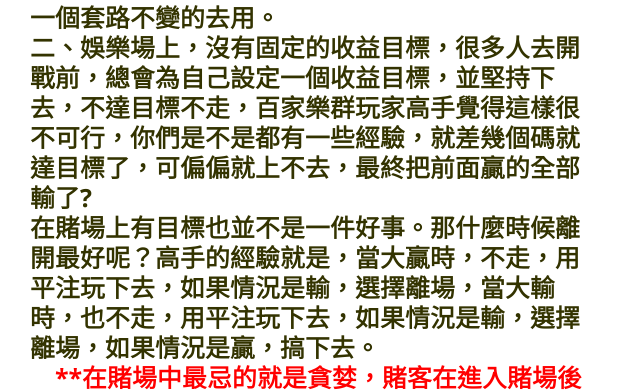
import math
import cairocffi as cairo

surface = cairo.ImageSurface(cairo.FORMAT_RGB24, 620, 391)
ctx = cairo.Context(surface)
options = cairo.FontOptions()
options.set_hint_metrics(cairo.HINT_METRICS_OFF)
options.set_hint_style(cairo.HINT_STYLE_NONE)
ctx.set_font_options(options)
ctx.set_miter_limit(4)


def rgb(r, g, b):
    ctx.set_source_rgb(r / 255, g / 255, b / 255)


def face(family, size, italic, bold):
    ctx.select_font_face(family, cairo.FONT_SLANT_ITALIC if italic else cairo.FONT_SLANT_NORMAL, cairo.FONT_WEIGHT_BOLD if bold else cairo.FONT_WEIGHT_NORMAL)
    ctx.set_font_size(size)


def label(x, y, s):
    ctx.move_to(x, y)
    ctx.show_text(s)


rgb(255, 255, 255)
ctx.paint()
face('Noto Sans CJK TC', 25, 0, 1)
rgb(51, 51, 0)
label(30, 27, '一個套路不變的去用。')
label(30, 57, '二、娛樂場上，沒有固定的收益目標，很多人去開')
label(30, 87, '戰前，總會為自己設定一個收益目標，並堅持下')
label(30, 117, '去，不達目標不走，百家樂群玩家高手覺得這樣很')
label(30, 147, '不可行，你們是不是都有一些經驗，就差幾個碼就')
label(30, 177, '達目標了，可偏偏就上不去，最終把前面贏的全部')
label(30, 207, '輸了')
face('Open Sans', 25, 0, 1)
label(80, 207, '?')
face('Noto Sans CJK TC', 25, 0, 1)
label(30, 237, '在賭場上有目標也並不是一件好事。那什麼時候離')
label(30, 267, '開最好呢？高手的經驗就是，當大贏時，不走，用')
label(30, 297, '平注玩下去，如果情況是輸，選擇離場，當大輸')
label(30, 327, '時，也不走，用平注玩下去，如果情況是輸，選擇')
label(30, 357, '離場，如果情況是贏，搞下去。')
face('Open Sans', 25, 0, 1)
rgb(255, 0, 0)
label(55, 387, '**')
face('Noto Sans CJK TC', 25, 0, 1)
label(82, 387, '在賭場中最忌的就是貪婪，賭客在進入賭場後')
surface.write_to_png('render.png')
